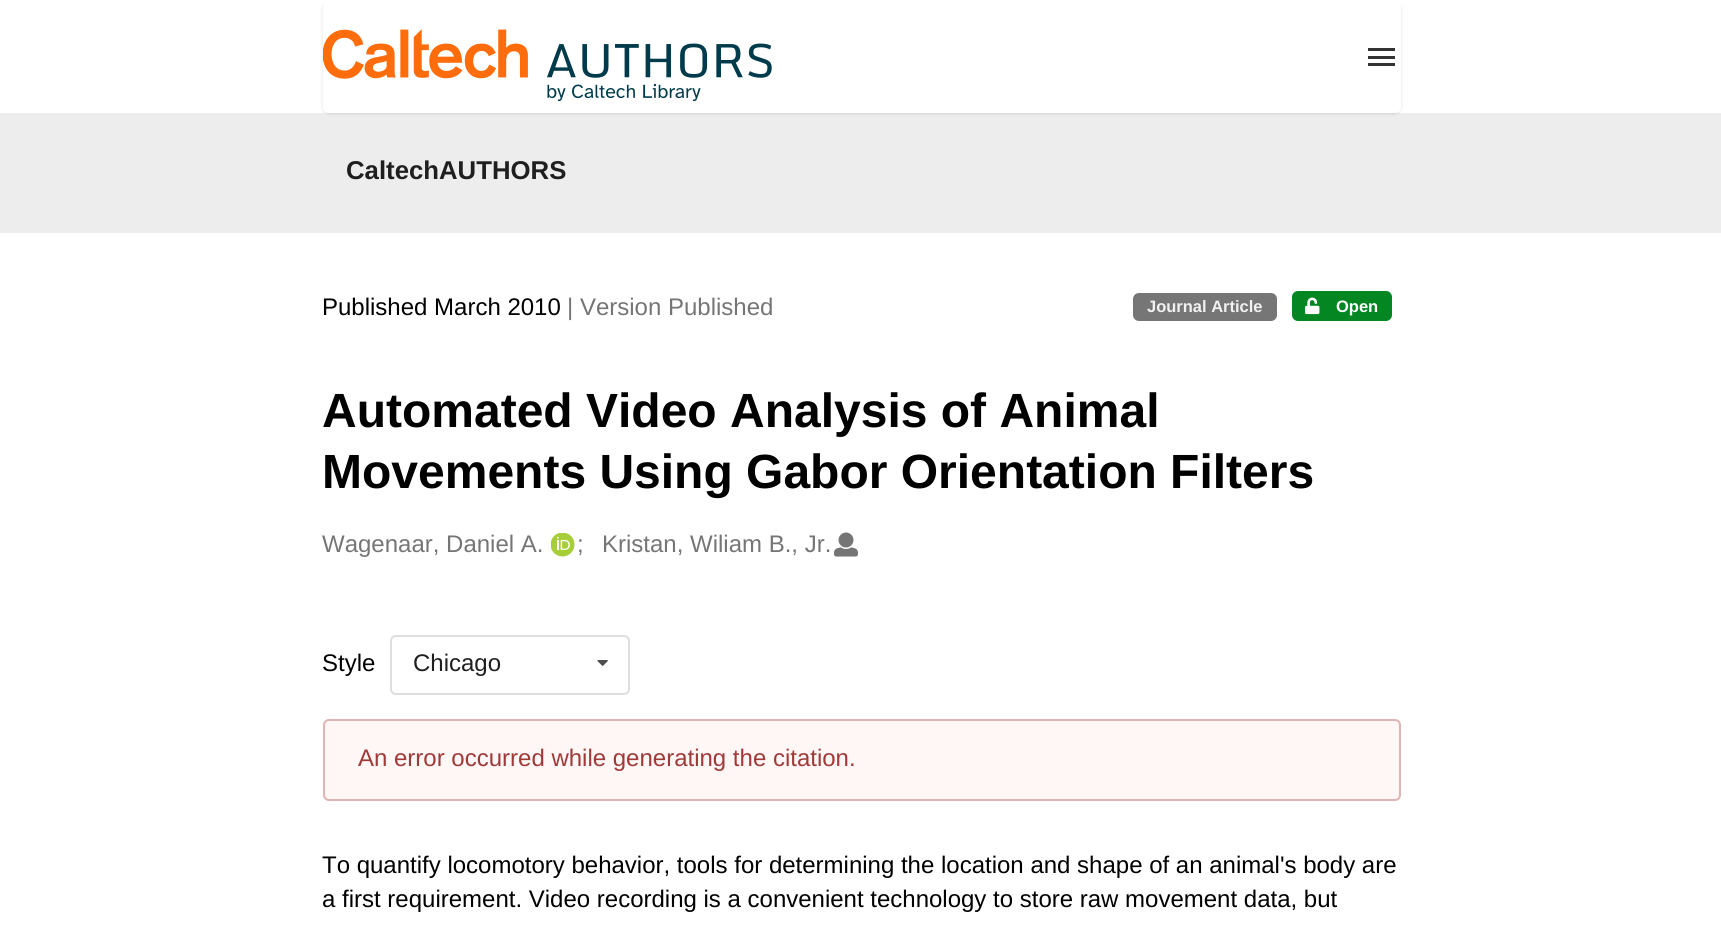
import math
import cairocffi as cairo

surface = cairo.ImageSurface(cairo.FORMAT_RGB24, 1721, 929)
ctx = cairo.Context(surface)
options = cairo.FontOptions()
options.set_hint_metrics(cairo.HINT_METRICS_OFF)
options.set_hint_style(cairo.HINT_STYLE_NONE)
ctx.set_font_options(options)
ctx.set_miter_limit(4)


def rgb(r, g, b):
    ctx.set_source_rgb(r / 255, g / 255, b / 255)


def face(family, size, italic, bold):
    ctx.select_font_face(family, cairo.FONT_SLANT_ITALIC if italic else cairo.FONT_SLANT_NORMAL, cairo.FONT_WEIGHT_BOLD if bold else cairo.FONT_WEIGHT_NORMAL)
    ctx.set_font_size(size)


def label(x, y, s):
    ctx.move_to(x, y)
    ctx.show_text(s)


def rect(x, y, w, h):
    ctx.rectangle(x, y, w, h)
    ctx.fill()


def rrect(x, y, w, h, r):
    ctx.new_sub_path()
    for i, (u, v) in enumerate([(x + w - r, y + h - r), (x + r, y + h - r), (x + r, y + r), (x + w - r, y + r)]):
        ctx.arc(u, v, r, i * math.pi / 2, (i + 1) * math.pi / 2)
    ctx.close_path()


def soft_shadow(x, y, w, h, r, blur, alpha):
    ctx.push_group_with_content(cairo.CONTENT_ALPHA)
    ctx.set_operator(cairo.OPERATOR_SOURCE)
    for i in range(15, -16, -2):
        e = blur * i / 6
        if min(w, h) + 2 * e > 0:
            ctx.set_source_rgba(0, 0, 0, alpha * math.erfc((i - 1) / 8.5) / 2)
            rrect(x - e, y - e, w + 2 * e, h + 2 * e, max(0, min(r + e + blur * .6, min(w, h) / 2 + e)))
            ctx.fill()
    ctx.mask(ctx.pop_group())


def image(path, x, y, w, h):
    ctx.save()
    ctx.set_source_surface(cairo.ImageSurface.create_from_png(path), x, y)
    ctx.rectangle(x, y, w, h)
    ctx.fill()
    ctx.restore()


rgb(255, 255, 255)
ctx.paint()
rgb(237, 237, 237)
rect(0, 113, 1721, 120)
ctx.save()
ctx.set_fill_rule(cairo.FILL_RULE_EVEN_ODD)
ctx.new_path()
ctx.move_to(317, 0)
ctx.line_to(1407, 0)
ctx.line_to(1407, 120)
ctx.line_to(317, 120)
ctx.close_path()
ctx.move_to(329, 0)
ctx.line_to(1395, 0)
ctx.curve_to(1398.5, 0, 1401, 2.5, 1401, 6)
ctx.line_to(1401, 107)
ctx.curve_to(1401, 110.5, 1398.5, 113, 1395, 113)
ctx.line_to(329, 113)
ctx.curve_to(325.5, 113, 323, 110.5, 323, 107)
ctx.line_to(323, 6)
ctx.curve_to(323, 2.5, 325.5, 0, 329, 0)
ctx.close_path()
ctx.clip()
rgb(34, 36, 38)
soft_shadow(323, 2, 1078, 112, 6, 1.5, 0.15)
ctx.restore()
image('image0.png', 323, 29, 449, 72)
rgb(51, 51, 51)
rect(1368, 56, 27, 3)
rect(1368, 48, 27, 3)
rect(1368, 63, 27, 3)
face('Liberation Sans', 25.75, 0, 1)
rgb(31, 31, 31)
label(346, 179, 'CaltechAUTHORS')
face('Liberation Sans', 24, 0, 0)
rgb(0, 0, 0)
label(322, 315, 'Published March 2010')
rgb(117, 117, 117)
label(567, 315, '| Version Published')
rgb(118, 118, 118)
rrect(1133, 293, 144, 28, 6)
ctx.fill()
face('Liberation Sans', 16.5, 0, 1)
rgb(241, 241, 241)
label(1147, 312, 'Journal Article')
rgb(4, 134, 34)
rrect(1292, 291, 100, 30, 6)
ctx.fill()
image('image1.png', 1305, 297, 15, 18)
rgb(255, 255, 255)
label(1336, 312, 'Open')
face('Liberation Sans', 48, 0, 1)
rgb(0, 0, 0)
label(322, 427, 'Automated Video Analysis of Animal')
label(322, 488, 'Movements Using Gabor Orientation Filters')
face('Liberation Sans', 24, 0, 0)
rgb(117, 117, 117)
label(322, 552, 'Wagenaar, Daniel A.')
image('image2.png', 551, 533, 24, 24)
label(577, 552, ';')
label(602, 552, 'Kristan, Wiliam B., Jr.')
image('image3.png', 834, 532, 24, 25)
rgb(0, 0, 0)
label(322, 671, 'Style')
rrect(391, 636, 238, 58, 5)
rgb(222, 222, 222)
ctx.stroke()
rgb(31, 31, 31)
label(413, 671, 'Chicago')
image('image4.png', 597, 660, 11, 6)
rgb(255, 246, 246)
rrect(324, 720, 1076, 80, 5)
ctx.fill_preserve()
rgb(224, 180, 180)
ctx.stroke()
rgb(159, 58, 56)
label(358, 766, 'An error occurred while generating the citation.')
rgb(0, 0, 0)
label(322, 873, 'To quantify locomotory behavior, tools for determining the location and shape of an animal\'s body are')
label(322, 907, 'a first requirement. Video recording is a convenient technology to store raw movement data, but')
surface.write_to_png('render.png')
